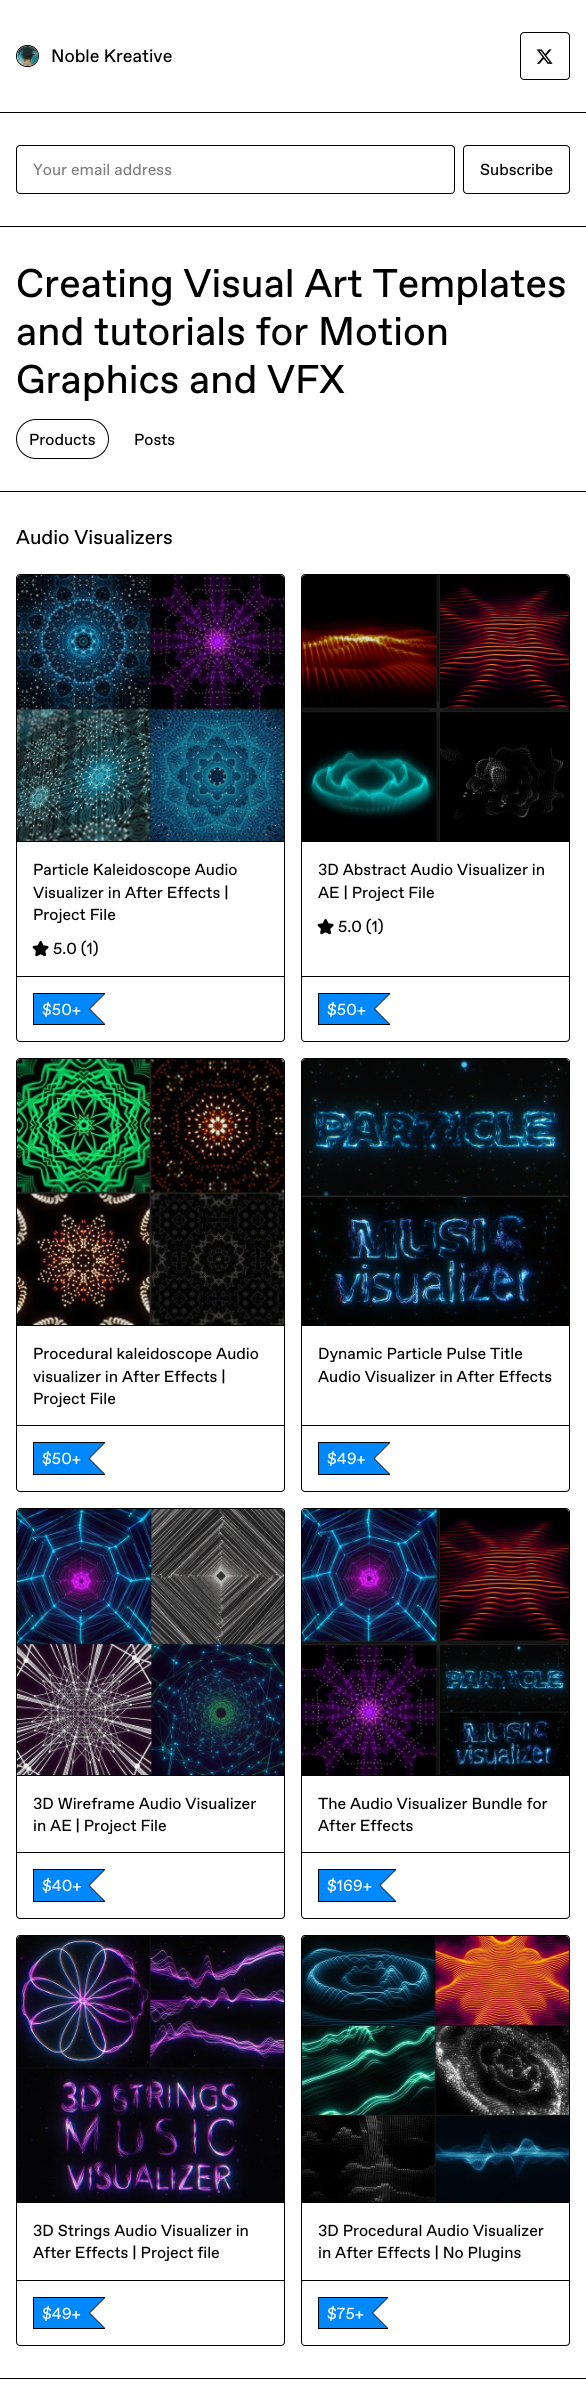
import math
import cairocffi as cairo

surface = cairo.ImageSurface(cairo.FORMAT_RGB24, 586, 2386)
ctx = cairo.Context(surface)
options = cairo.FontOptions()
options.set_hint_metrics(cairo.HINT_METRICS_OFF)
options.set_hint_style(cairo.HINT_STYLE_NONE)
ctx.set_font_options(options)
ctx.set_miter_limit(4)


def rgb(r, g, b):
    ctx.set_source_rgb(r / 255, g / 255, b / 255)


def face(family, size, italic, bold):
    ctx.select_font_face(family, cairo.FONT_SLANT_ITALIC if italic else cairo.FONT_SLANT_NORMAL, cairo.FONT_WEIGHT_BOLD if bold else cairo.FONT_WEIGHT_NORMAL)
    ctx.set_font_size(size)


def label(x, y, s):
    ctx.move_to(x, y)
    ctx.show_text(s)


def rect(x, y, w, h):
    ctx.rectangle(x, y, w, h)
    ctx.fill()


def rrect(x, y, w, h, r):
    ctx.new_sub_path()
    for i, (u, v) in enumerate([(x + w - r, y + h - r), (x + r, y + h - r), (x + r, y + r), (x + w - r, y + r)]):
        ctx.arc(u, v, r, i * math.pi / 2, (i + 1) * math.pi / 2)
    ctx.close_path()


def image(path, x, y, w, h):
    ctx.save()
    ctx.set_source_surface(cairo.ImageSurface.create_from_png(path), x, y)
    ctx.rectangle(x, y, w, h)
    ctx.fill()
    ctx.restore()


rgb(255, 255, 255)
ctx.paint()
rgb(0, 0, 0)
rect(0, 112, 586, 1)
rrect(16.5, 45.5, 22, 21, 10.5)
ctx.set_line_width(1)
ctx.stroke()
image('image0.png', 17, 46, 21, 20)
face('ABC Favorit', 18, 0, 0)
label(51, 62, 'Noble Kreative')
rrect(520.5, 32.5, 49, 47, 3.5)
ctx.stroke()
image('image1.png', 536, 49, 17, 15)
rect(0, 226, 586, 1)
rrect(16.5, 145.5, 438, 48, 3.5)
ctx.stroke()
face('ABC Favorit', 16, 0, 0)
rgb(128, 128, 128)
label(33, 175, 'Your email address')
rrect(463.5, 145.5, 106, 48, 3.5)
rgb(0, 0, 0)
ctx.stroke()
label(480, 175, 'Subscribe')
rect(0, 491, 586, 1)
face('ABC Favorit', 40, 0, 0)
label(16, 297, 'Creating Visual Art Templates')
label(16, 345, 'and tutorials for Motion')
label(16, 393, 'Graphics and VFX')
rrect(16.5, 419.5, 92, 39, 19.5)
ctx.stroke()
face('ABC Favorit', 16, 0, 0)
label(29, 445, 'Products')
label(134, 445, 'Posts')
rect(0, 2378, 586, 1)
face('ABC Favorit', 20, 0, 0)
label(16, 544, 'Audio Visualizers')
rrect(16.5, 574.5, 268, 467, 3.5)
ctx.stroke()
rect(17, 841, 267, 1)
image('image2.png', 17, 575, 267, 266)
rect(17, 976, 267, 1)
face('ABC Favorit', 16, 0, 0)
label(33, 875, 'Particle Kaleidoscope Audio')
label(33, 898, 'Visualizer in After Effects |')
label(33, 920, 'Project File')
image('image3.png', 32, 941, 17, 16)
label(53, 954, '5.0 (1)')
rect(33, 993, 72, 1)
rect(33, 1024, 72, 1)
rect(33, 993, 1, 32)
rgb(0, 136, 255)
rect(34, 994, 55, 30)
rgb(0, 0, 0)
ctx.new_path()
ctx.move_to(89, 994)
ctx.line_to(105, 994)
ctx.line_to(90, 1009)
ctx.close_path()
ctx.move_to(105, 1024)
ctx.line_to(89, 1024)
ctx.line_to(90, 1009)
ctx.close_path()
ctx.fill()
rect(89, 1008, 1, 2)
rgb(0, 136, 255)
ctx.new_path()
ctx.move_to(88, 994)
ctx.line_to(104, 994)
ctx.line_to(89, 1009)
ctx.close_path()
ctx.move_to(104, 1024)
ctx.line_to(88, 1024)
ctx.line_to(89, 1009)
ctx.close_path()
ctx.fill()
rgb(255, 255, 255)
label(42, 1015, '$50+')
rrect(301.5, 574.5, 268, 467, 3.5)
rgb(0, 0, 0)
ctx.stroke()
rect(302, 841, 267, 1)
image('image4.png', 302, 575, 267, 266)
rect(302, 976, 267, 1)
label(318, 875, '3D Abstract Audio Visualizer in')
label(318, 898, 'AE | Project File')
image('image3.png', 317, 919, 17, 16)
label(338, 932, '5.0 (1)')
rect(318, 993, 72, 1)
rect(318, 1024, 72, 1)
rect(318, 993, 1, 32)
rgb(0, 136, 255)
rect(319, 994, 55, 30)
rgb(0, 0, 0)
ctx.new_path()
ctx.move_to(374, 994)
ctx.line_to(390, 994)
ctx.line_to(375, 1009)
ctx.close_path()
ctx.move_to(390, 1024)
ctx.line_to(374, 1024)
ctx.line_to(375, 1009)
ctx.close_path()
ctx.fill()
rect(374, 1008, 1, 2)
rgb(0, 136, 255)
ctx.new_path()
ctx.move_to(373, 994)
ctx.line_to(389, 994)
ctx.line_to(374, 1009)
ctx.close_path()
ctx.move_to(389, 1024)
ctx.line_to(373, 1024)
ctx.line_to(374, 1009)
ctx.close_path()
ctx.fill()
rgb(255, 255, 255)
label(327, 1015, '$50+')
rrect(16.5, 1058.5, 268, 433, 3.5)
rgb(0, 0, 0)
ctx.stroke()
rect(17, 1325, 267, 1)
image('image5.png', 17, 1059, 267, 266)
rect(17, 1425, 267, 1)
label(33, 1359, 'Procedural kaleidoscope Audio')
label(33, 1382, 'visualizer in After Effects |')
label(33, 1404, 'Project File')
rect(33, 1442, 72, 1)
rect(33, 1474, 72, 1)
rect(33, 1442, 1, 33)
rgb(0, 136, 255)
rect(34, 1443, 55, 31)
rgb(0, 0, 0)
ctx.new_path()
ctx.move_to(89, 1443)
ctx.line_to(105, 1443)
ctx.line_to(90, 1458)
ctx.close_path()
ctx.move_to(105, 1474)
ctx.line_to(89, 1474)
ctx.line_to(90, 1459)
ctx.close_path()
ctx.fill()
rect(89, 1457, 1, 3)
rgb(0, 136, 255)
ctx.new_path()
ctx.move_to(88, 1443)
ctx.line_to(104, 1443)
ctx.line_to(89, 1458)
ctx.close_path()
ctx.move_to(104, 1474)
ctx.line_to(88, 1474)
ctx.line_to(89, 1459)
ctx.close_path()
ctx.fill()
rgb(255, 255, 255)
label(42, 1464, '$50+')
rrect(301.5, 1058.5, 268, 433, 3.5)
rgb(0, 0, 0)
ctx.stroke()
rect(302, 1325, 267, 1)
image('image6.png', 302, 1059, 267, 266)
rect(302, 1425, 267, 1)
label(318, 1359, 'Dynamic Particle Pulse Title')
label(318, 1382, 'Audio Visualizer in After Effects')
rect(318, 1442, 72, 1)
rect(318, 1474, 72, 1)
rect(318, 1442, 1, 33)
rgb(0, 136, 255)
rect(319, 1443, 55, 31)
rgb(0, 0, 0)
ctx.new_path()
ctx.move_to(374, 1443)
ctx.line_to(390, 1443)
ctx.line_to(375, 1458)
ctx.close_path()
ctx.move_to(390, 1474)
ctx.line_to(374, 1474)
ctx.line_to(375, 1459)
ctx.close_path()
ctx.fill()
rect(374, 1457, 1, 3)
rgb(0, 136, 255)
ctx.new_path()
ctx.move_to(373, 1443)
ctx.line_to(389, 1443)
ctx.line_to(374, 1458)
ctx.close_path()
ctx.move_to(389, 1474)
ctx.line_to(373, 1474)
ctx.line_to(374, 1459)
ctx.close_path()
ctx.fill()
rgb(255, 255, 255)
label(327, 1464, '$49+')
rrect(16.5, 1508.5, 268, 410, 3.5)
rgb(0, 0, 0)
ctx.stroke()
rect(17, 1775, 267, 1)
image('image7.png', 17, 1509, 267, 266)
rect(17, 1852, 267, 1)
label(33, 1809, '3D Wireframe Audio Visualizer')
label(33, 1831, 'in AE | Project File')
rect(33, 1869, 72, 1)
rect(33, 1901, 72, 1)
rect(33, 1869, 1, 33)
rgb(0, 136, 255)
rect(34, 1870, 55, 31)
rgb(0, 0, 0)
ctx.new_path()
ctx.move_to(89, 1870)
ctx.line_to(105, 1870)
ctx.line_to(90, 1885)
ctx.close_path()
ctx.move_to(105, 1901)
ctx.line_to(89, 1901)
ctx.line_to(90, 1886)
ctx.close_path()
ctx.fill()
rect(89, 1884, 1, 3)
rgb(0, 136, 255)
ctx.new_path()
ctx.move_to(88, 1870)
ctx.line_to(104, 1870)
ctx.line_to(89, 1885)
ctx.close_path()
ctx.move_to(104, 1901)
ctx.line_to(88, 1901)
ctx.line_to(89, 1886)
ctx.close_path()
ctx.fill()
rgb(255, 255, 255)
label(42, 1891, '$40+')
rrect(301.5, 1508.5, 268, 410, 3.5)
rgb(0, 0, 0)
ctx.stroke()
rect(302, 1775, 267, 1)
image('image8.png', 302, 1509, 267, 266)
rect(302, 1852, 267, 1)
label(318, 1809, 'The Audio Visualizer Bundle for')
label(318, 1831, 'After Effects')
rect(318, 1869, 78, 1)
rect(318, 1901, 78, 1)
rect(318, 1869, 1, 33)
rgb(0, 136, 255)
rect(319, 1870, 61, 31)
rgb(0, 0, 0)
ctx.new_path()
ctx.move_to(380, 1870)
ctx.line_to(396, 1870)
ctx.line_to(381, 1885)
ctx.close_path()
ctx.move_to(396, 1901)
ctx.line_to(380, 1901)
ctx.line_to(381, 1886)
ctx.close_path()
ctx.fill()
rect(380, 1884, 1, 3)
rgb(0, 136, 255)
ctx.new_path()
ctx.move_to(379, 1870)
ctx.line_to(395, 1870)
ctx.line_to(380, 1885)
ctx.close_path()
ctx.move_to(395, 1901)
ctx.line_to(379, 1901)
ctx.line_to(380, 1886)
ctx.close_path()
ctx.fill()
rgb(255, 255, 255)
label(327, 1891, '$169+')
rrect(16.5, 1935.5, 268, 410, 3.5)
rgb(0, 0, 0)
ctx.stroke()
rect(17, 2202, 267, 1)
image('image9.png', 17, 1936, 267, 266)
rect(17, 2280, 267, 1)
label(33, 2236, '3D Strings Audio Visualizer in')
label(33, 2258, 'After Effects | Project file')
rect(33, 2297, 72, 1)
rect(33, 2328, 72, 1)
rect(33, 2297, 1, 32)
rgb(0, 136, 255)
rect(34, 2298, 55, 30)
rgb(0, 0, 0)
ctx.new_path()
ctx.move_to(89, 2298)
ctx.line_to(105, 2298)
ctx.line_to(90, 2313)
ctx.close_path()
ctx.move_to(105, 2328)
ctx.line_to(89, 2328)
ctx.line_to(90, 2313)
ctx.close_path()
ctx.fill()
rect(89, 2312, 1, 2)
rgb(0, 136, 255)
ctx.new_path()
ctx.move_to(88, 2298)
ctx.line_to(104, 2298)
ctx.line_to(89, 2313)
ctx.close_path()
ctx.move_to(104, 2328)
ctx.line_to(88, 2328)
ctx.line_to(89, 2313)
ctx.close_path()
ctx.fill()
rgb(255, 255, 255)
label(42, 2319, '$49+')
rrect(301.5, 1935.5, 268, 410, 3.5)
rgb(0, 0, 0)
ctx.stroke()
rect(302, 2202, 267, 1)
image('image10.png', 302, 1936, 267, 266)
rect(302, 2280, 267, 1)
label(318, 2236, '3D Procedural Audio Visualizer')
label(318, 2258, 'in After Effects | No Plugins')
rect(318, 2297, 70, 1)
rect(318, 2328, 70, 1)
rect(318, 2297, 1, 32)
rgb(0, 136, 255)
rect(319, 2298, 53, 30)
rgb(0, 0, 0)
ctx.new_path()
ctx.move_to(372, 2298)
ctx.line_to(388, 2298)
ctx.line_to(373, 2313)
ctx.close_path()
ctx.move_to(388, 2328)
ctx.line_to(372, 2328)
ctx.line_to(373, 2313)
ctx.close_path()
ctx.fill()
rect(372, 2312, 1, 2)
rgb(0, 136, 255)
ctx.new_path()
ctx.move_to(371, 2298)
ctx.line_to(387, 2298)
ctx.line_to(372, 2313)
ctx.close_path()
ctx.move_to(387, 2328)
ctx.line_to(371, 2328)
ctx.line_to(372, 2313)
ctx.close_path()
ctx.fill()
rgb(255, 255, 255)
label(327, 2319, '$75+')
surface.write_to_png('render.png')
